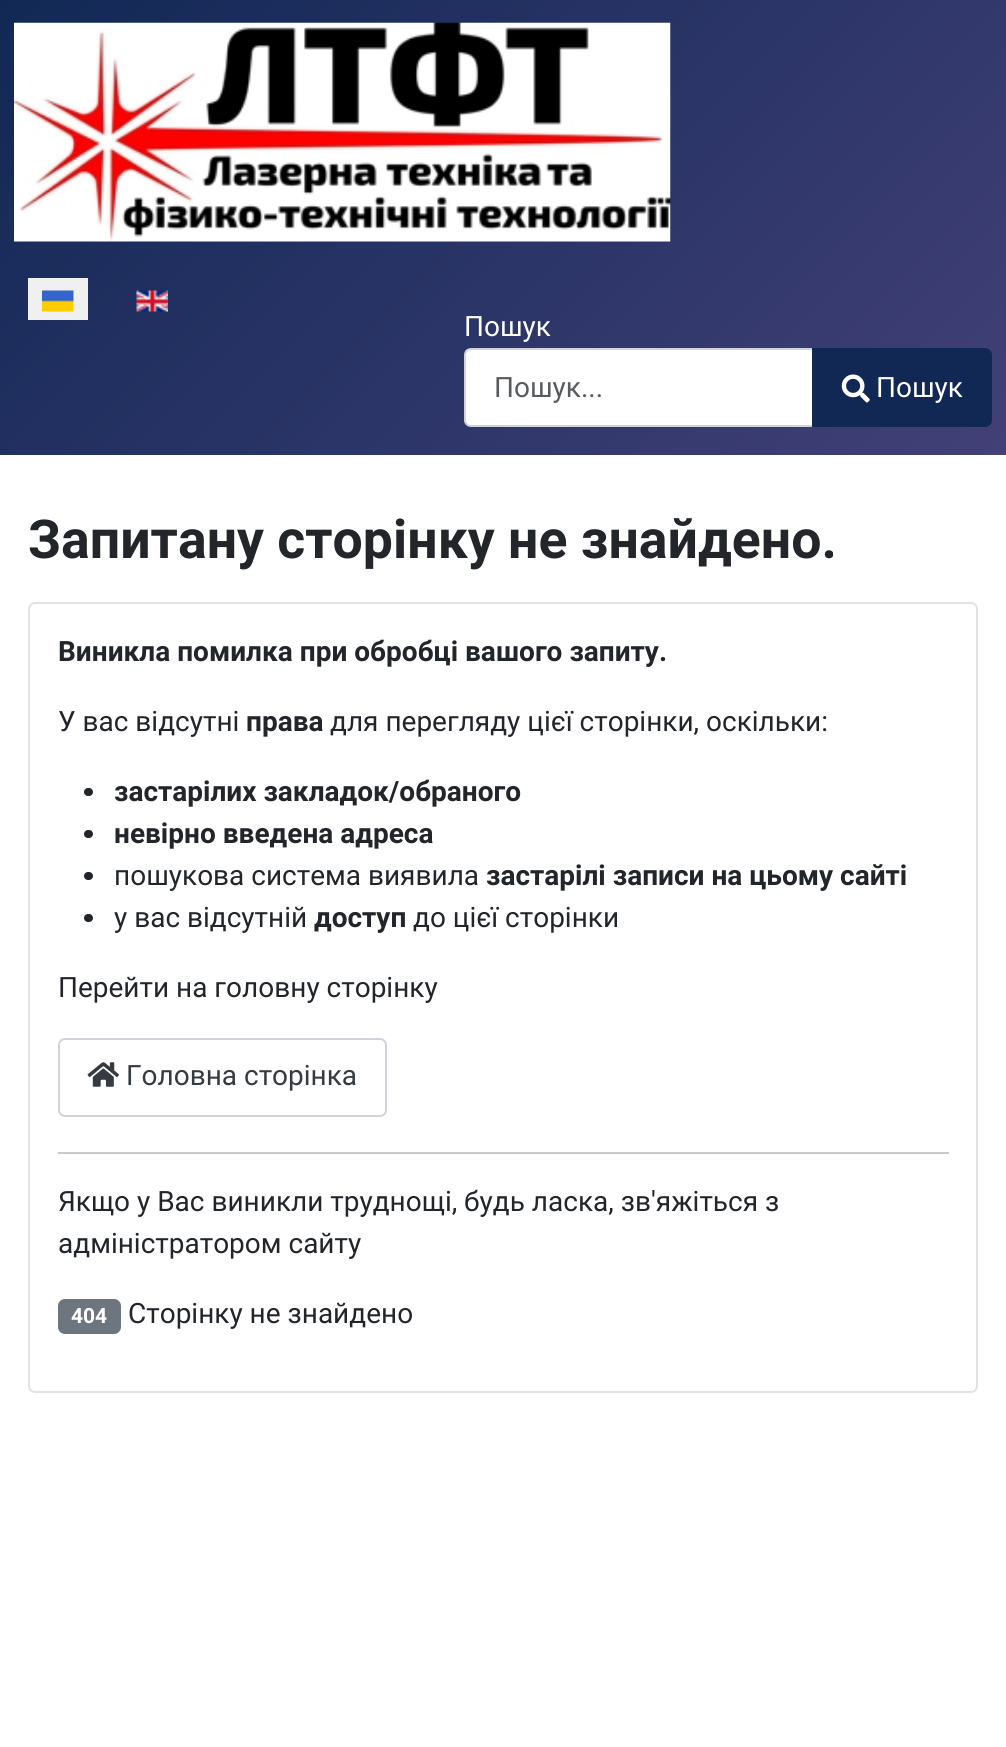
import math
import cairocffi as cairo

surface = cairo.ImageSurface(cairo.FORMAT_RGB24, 1006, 1747)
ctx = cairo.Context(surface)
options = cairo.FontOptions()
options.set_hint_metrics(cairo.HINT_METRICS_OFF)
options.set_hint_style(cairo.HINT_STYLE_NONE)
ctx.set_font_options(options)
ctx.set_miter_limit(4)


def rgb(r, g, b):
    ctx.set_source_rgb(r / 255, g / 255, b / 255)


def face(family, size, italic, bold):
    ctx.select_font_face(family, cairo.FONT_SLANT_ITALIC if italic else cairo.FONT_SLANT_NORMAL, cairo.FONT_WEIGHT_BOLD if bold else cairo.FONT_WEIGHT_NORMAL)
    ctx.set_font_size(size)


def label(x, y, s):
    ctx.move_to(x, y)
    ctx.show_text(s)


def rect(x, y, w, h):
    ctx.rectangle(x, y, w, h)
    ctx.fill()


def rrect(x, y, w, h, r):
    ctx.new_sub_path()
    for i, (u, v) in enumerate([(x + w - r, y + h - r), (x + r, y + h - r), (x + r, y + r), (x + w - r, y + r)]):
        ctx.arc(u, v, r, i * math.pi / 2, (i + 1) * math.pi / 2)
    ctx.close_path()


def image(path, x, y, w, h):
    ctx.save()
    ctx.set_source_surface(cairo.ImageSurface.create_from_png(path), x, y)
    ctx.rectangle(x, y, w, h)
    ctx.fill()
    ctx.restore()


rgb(255, 255, 255)
ctx.paint()
gradient = cairo.LinearGradient(138, -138, 868, 593)
gradient.add_color_stop_rgba(0, 0.067, 0.157, 0.333, 1)
gradient.add_color_stop_rgba(1, 0.259, 0.251, 0.467, 1)
ctx.set_source(gradient)
rect(0, 0, 1006, 455)
image('image0.png', 14, 22, 657, 220)
rgb(240, 240, 240)
rect(28, 278, 60, 42)
image('image1.png', 42, 290, 32, 22)
image('image2.png', 136, 290, 32, 22)
face('Roboto', 28, 0, 0)
rgb(255, 255, 255)
label(464, 336, 'Пошук')
ctx.new_path()
ctx.move_to(471, 349)
ctx.line_to(813, 349)
ctx.line_to(813, 426)
ctx.line_to(471, 426)
ctx.curve_to(467.5, 426, 465, 423.5, 465, 420)
ctx.line_to(465, 355)
ctx.curve_to(465, 351.5, 467.5, 349, 471, 349)
ctx.close_path()
ctx.fill_preserve()
rgb(206, 212, 218)
ctx.stroke()
rgb(89, 92, 95)
label(494, 397, 'Пошук...')
rgb(17, 40, 85)
ctx.new_path()
ctx.move_to(813, 349)
ctx.line_to(985, 349)
ctx.curve_to(988.5, 349, 991, 351.5, 991, 355)
ctx.line_to(991, 420)
ctx.curve_to(991, 423.5, 988.5, 426, 985, 426)
ctx.line_to(813, 426)
ctx.close_path()
ctx.fill_preserve()
ctx.stroke()
image('image3.png', 841, 374, 29, 29)
rgb(255, 255, 255)
label(876, 397, 'Пошук')
face('Roboto', 53.6, 0, 1)
rgb(34, 38, 42)
label(28, 558, 'Запитану сторінку не знайдено.')
rrect(29, 603, 948, 789, 6)
rgb(223, 227, 231)
ctx.stroke()
face('Roboto', 28, 0, 1)
rgb(34, 38, 42)
label(58, 661, 'Виникла помилка при обробці вашого запиту.')
face('Roboto', 28, 0, 0)
label(58, 731, 'У вас відсутні')
face('Roboto', 28, 0, 1)
label(246, 731, 'права')
face('Roboto', 28, 0, 0)
label(330, 731, 'для перегляду цієї сторінки, оскільки:')
rrect(84, 788, 9, 8, 4)
ctx.fill()
face('Roboto', 28, 0, 1)
label(114, 801, 'застарілих закладок/обраного')
rrect(84, 830, 9, 8, 4)
ctx.fill()
label(114, 843, 'невірно введена адреса')
rrect(84, 872, 9, 8, 4)
ctx.fill()
face('Roboto', 28, 0, 0)
label(114, 885, 'пошукова система виявила')
face('Roboto', 28, 0, 1)
label(486, 885, 'застарілі записи на цьому сайті')
rrect(84, 914, 9, 8, 4)
ctx.fill()
face('Roboto', 28, 0, 0)
label(114, 927, 'у вас відсутній')
face('Roboto', 28, 0, 1)
label(314, 927, 'доступ')
face('Roboto', 28, 0, 0)
label(413, 927, 'до цієї сторінки')
label(58, 997, 'Перейти на головну сторінку')
rrect(59, 1039, 327, 77, 6)
rgb(206, 212, 218)
ctx.stroke()
image('image4.png', 87, 1062, 32, 25)
rgb(53, 59, 65)
label(126, 1085, 'Головна сторінка')
rgb(200, 201, 202)
rect(58, 1152, 891, 2)
rgb(34, 38, 42)
label(58, 1211, 'Якщо у Вас виникли труднощі, будь ласка, зв\'яжіться з')
label(58, 1253, 'адміністратором сайту')
rgb(109, 117, 126)
rrect(58, 1299, 63, 35, 7)
ctx.fill()
face('Roboto', 21, 0, 1)
rgb(255, 255, 255)
label(71, 1323, '404')
face('Roboto', 28, 0, 0)
rgb(34, 38, 42)
label(128, 1323, 'Сторінку не знайдено')
surface.write_to_png('render.png')
